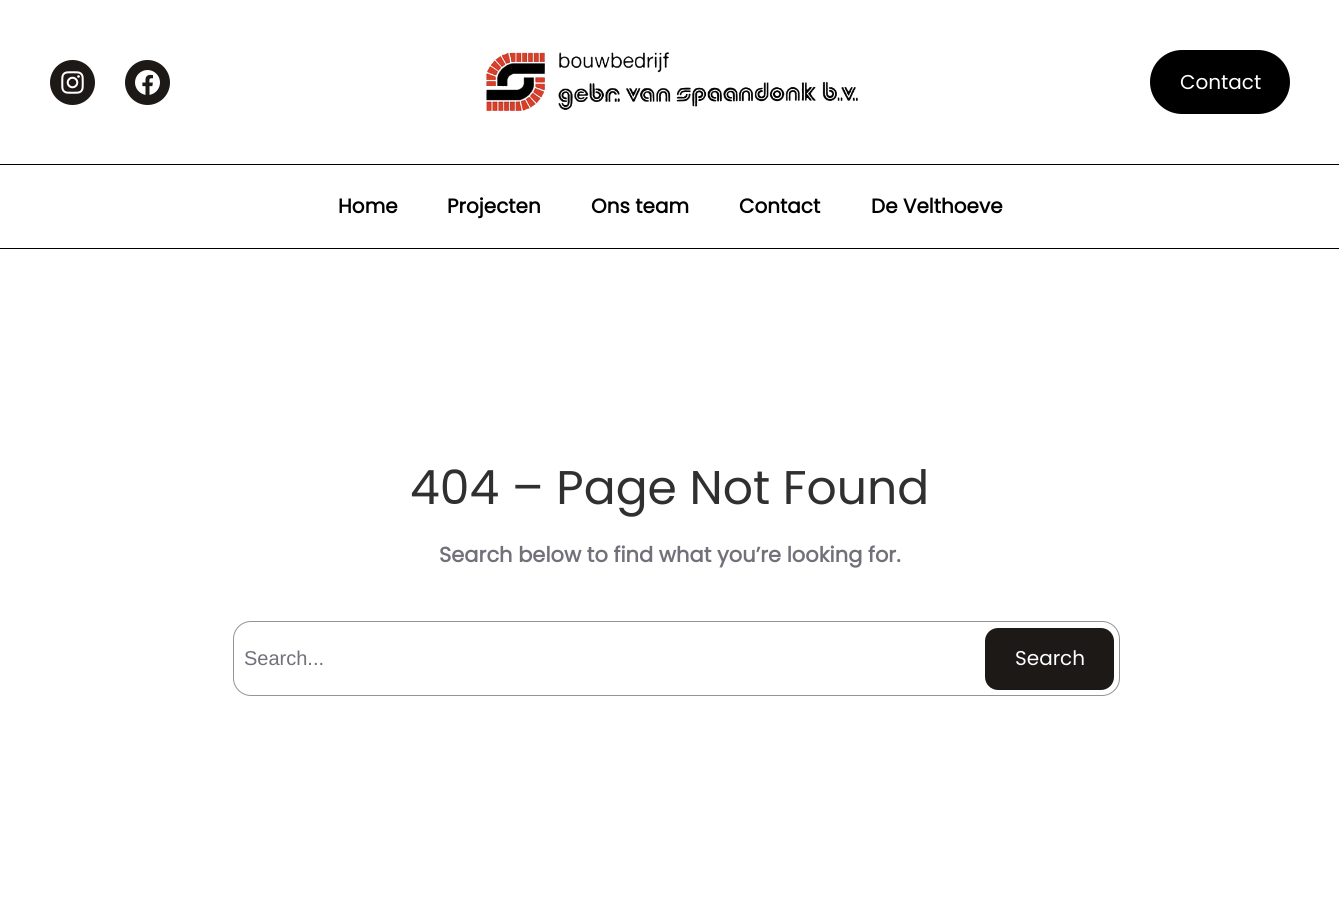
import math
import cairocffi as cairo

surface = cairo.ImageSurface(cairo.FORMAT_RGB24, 1339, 905)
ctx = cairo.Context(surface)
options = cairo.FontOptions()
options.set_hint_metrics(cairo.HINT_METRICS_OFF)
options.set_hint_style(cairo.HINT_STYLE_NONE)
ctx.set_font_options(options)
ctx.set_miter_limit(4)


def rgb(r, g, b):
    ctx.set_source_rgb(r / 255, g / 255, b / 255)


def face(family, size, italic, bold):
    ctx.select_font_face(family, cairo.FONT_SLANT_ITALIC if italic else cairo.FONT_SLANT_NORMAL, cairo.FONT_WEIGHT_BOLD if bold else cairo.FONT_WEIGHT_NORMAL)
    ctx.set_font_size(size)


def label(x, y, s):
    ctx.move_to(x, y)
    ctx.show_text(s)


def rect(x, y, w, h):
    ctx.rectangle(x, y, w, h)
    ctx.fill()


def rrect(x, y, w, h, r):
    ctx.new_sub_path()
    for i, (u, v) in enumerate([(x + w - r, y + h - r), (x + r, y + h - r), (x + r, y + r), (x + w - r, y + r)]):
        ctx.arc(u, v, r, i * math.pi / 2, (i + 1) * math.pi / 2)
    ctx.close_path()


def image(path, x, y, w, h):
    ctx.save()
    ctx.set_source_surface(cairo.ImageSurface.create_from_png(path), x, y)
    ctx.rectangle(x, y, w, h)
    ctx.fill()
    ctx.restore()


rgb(255, 255, 255)
ctx.paint()
rgb(28, 25, 23)
ctx.arc(72.5, 82.5, 22.5, 0, 2 * math.pi)
ctx.fill()
image('image0.png', 61, 71, 23, 23)
ctx.arc(147.5, 82.5, 22.5, 0, 2 * math.pi)
ctx.fill()
image('image1.png', 135, 70, 25, 25)
image('image2.png', 486, 52, 372, 59)
rgb(0, 0, 0)
rrect(1150, 50, 140, 64, 32)
ctx.fill()
face('Poppins', 20, 0, 0)
rgb(255, 255, 255)
label(1180, 89, 'Contact')
rgb(0, 0, 0)
rect(0, 164, 1339, 1)
rect(0, 248, 1339, 1)
face('Poppins', 20, 0, 1)
label(338, 213, 'Home')
label(447, 213, 'Projecten')
label(591, 213, 'Ons team')
label(739, 213, 'Contact')
label(871, 213, 'De Velthoeve')
face('Poppins', 47.25, 0, 0)
rgb(48, 48, 48)
label(410, 504, '404 – Page Not Found')
face('Poppins', 21, 0, 1)
rgb(113, 113, 122)
label(439, 562, 'Search below to find what you’re looking for.')
rrect(233.5, 621.5, 886, 74, 17.5)
rgb(148, 148, 148)
ctx.set_line_width(1)
ctx.stroke()
face('Liberation Sans', 20, 0, 0)
rgb(113, 113, 122)
label(244, 665, 'Search...')
rgb(28, 25, 23)
rrect(985, 628, 129, 62, 13)
ctx.fill()
face('Poppins', 20, 0, 0)
rgb(255, 255, 255)
label(1015, 665, 'Search')
surface.write_to_png('render.png')
